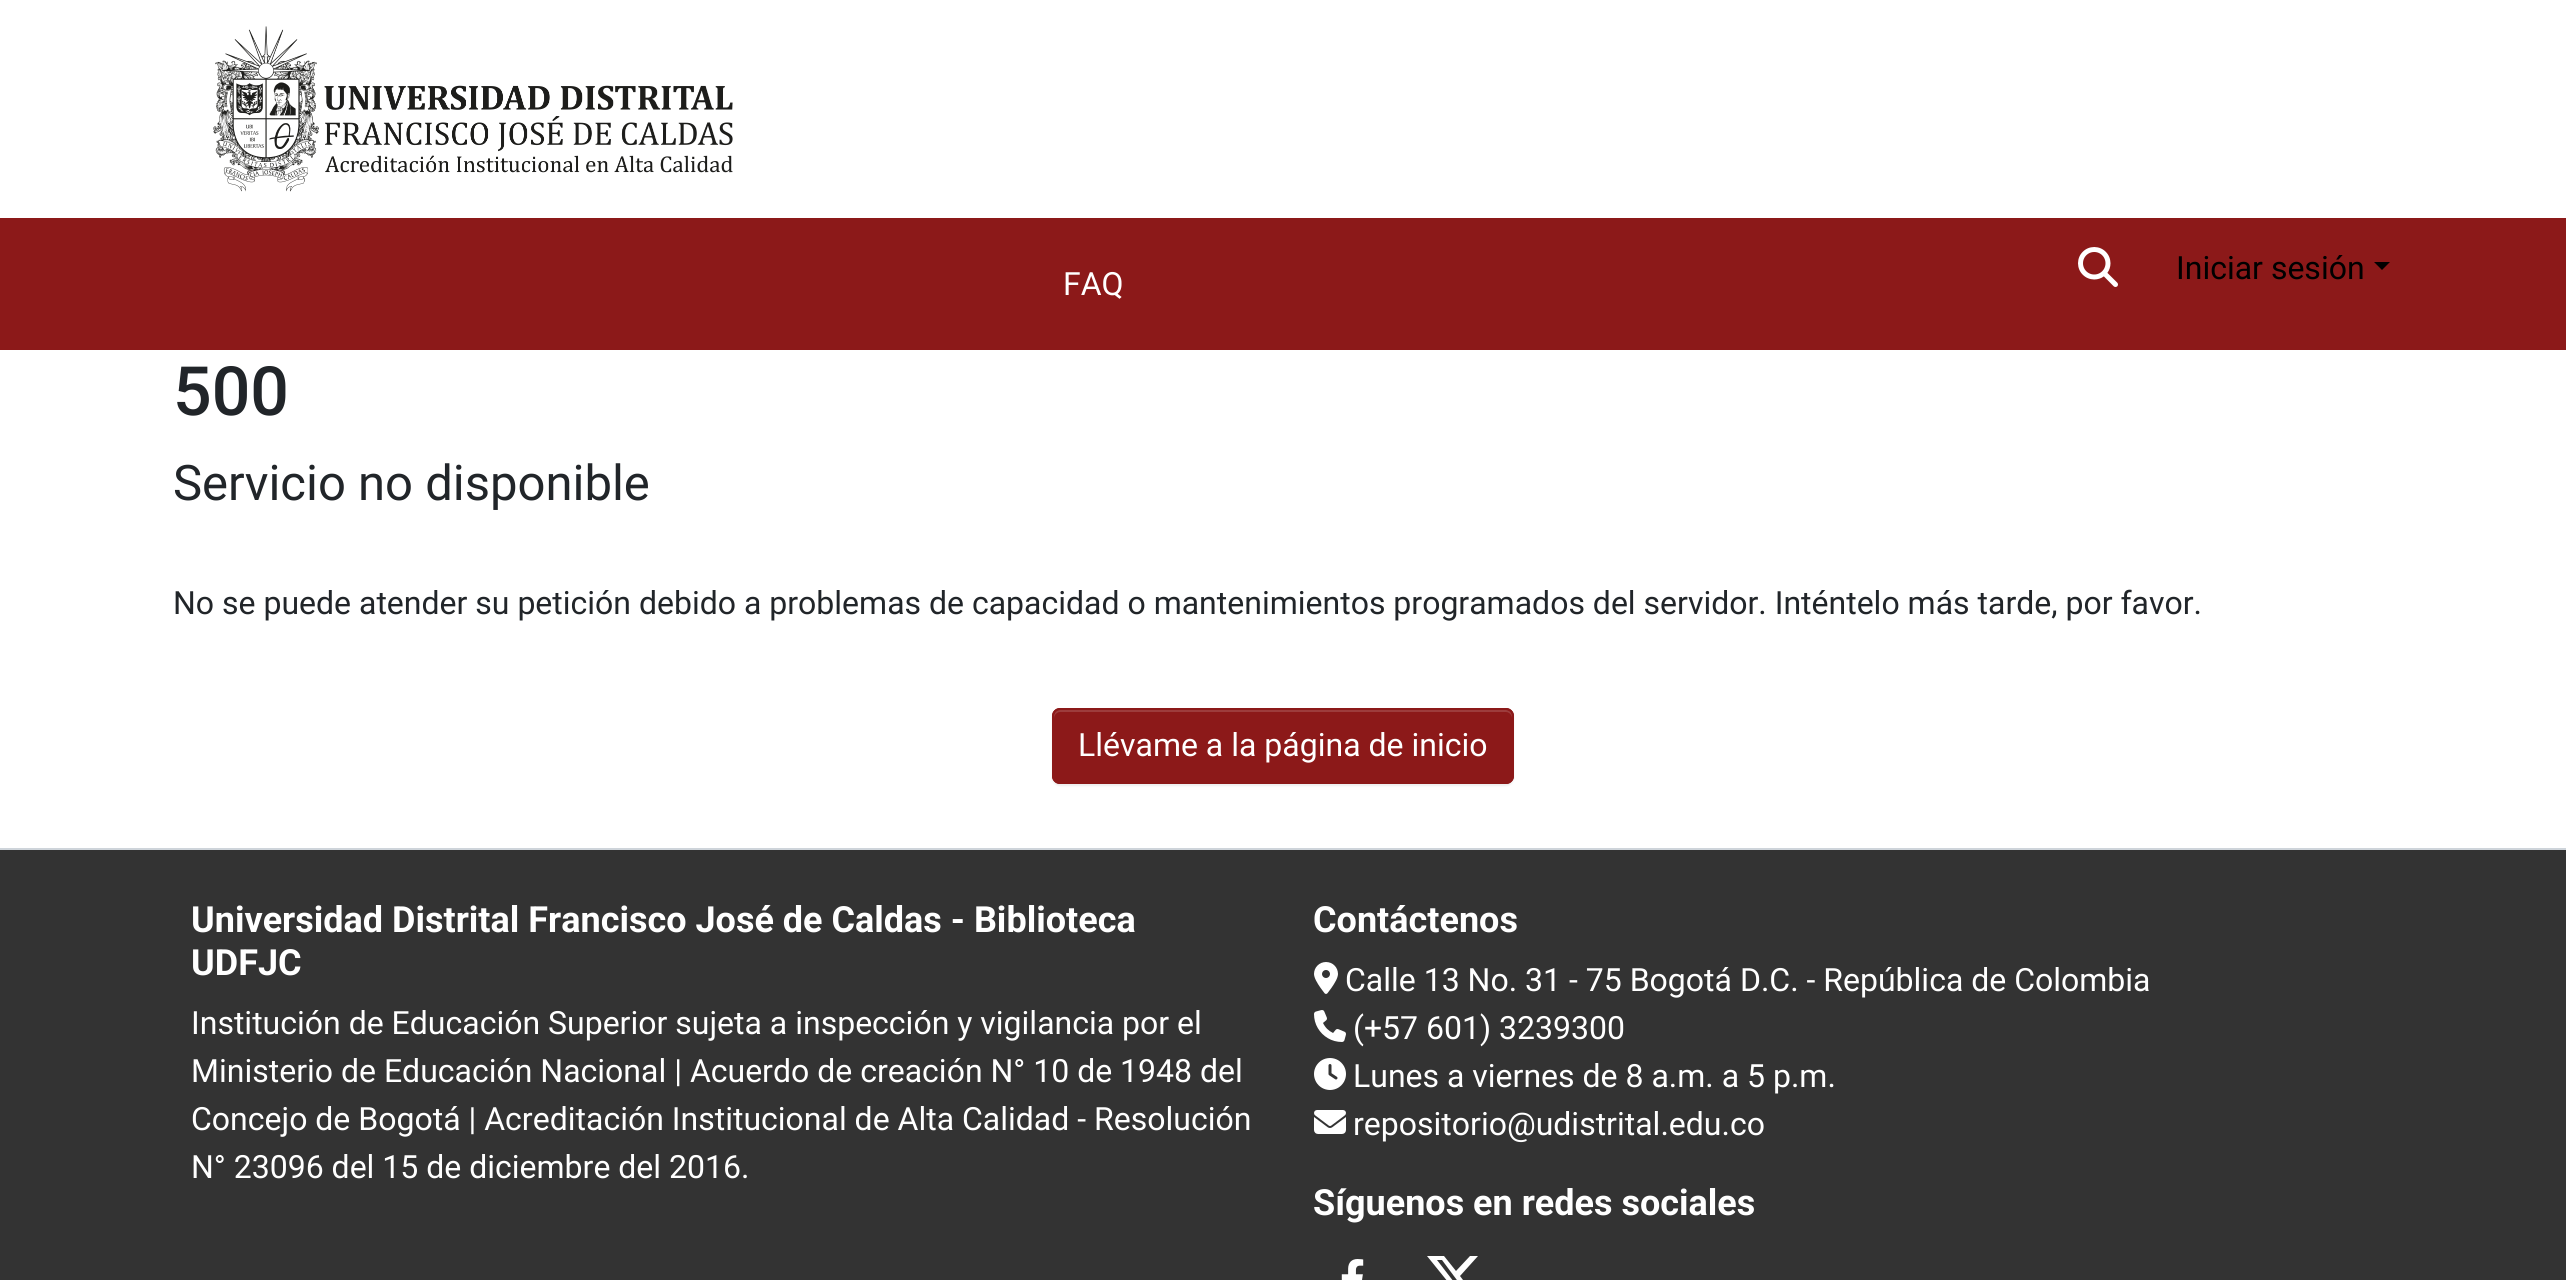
import math
import cairocffi as cairo

surface = cairo.ImageSurface(cairo.FORMAT_RGB24, 2566, 1280)
ctx = cairo.Context(surface)
options = cairo.FontOptions()
options.set_hint_metrics(cairo.HINT_METRICS_OFF)
options.set_hint_style(cairo.HINT_STYLE_NONE)
ctx.set_font_options(options)
ctx.set_miter_limit(4)


def rgb(r, g, b):
    ctx.set_source_rgb(r / 255, g / 255, b / 255)


def face(family, size, italic, bold):
    ctx.select_font_face(family, cairo.FONT_SLANT_ITALIC if italic else cairo.FONT_SLANT_NORMAL, cairo.FONT_WEIGHT_BOLD if bold else cairo.FONT_WEIGHT_NORMAL)
    ctx.set_font_size(size)


def label(x, y, s):
    ctx.move_to(x, y)
    ctx.show_text(s)


def rect(x, y, w, h):
    ctx.rectangle(x, y, w, h)
    ctx.fill()


def rrect(x, y, w, h, r):
    ctx.new_sub_path()
    for i, (u, v) in enumerate([(x + w - r, y + h - r), (x + r, y + h - r), (x + r, y + r), (x + w - r, y + r)]):
        ctx.arc(u, v, r, i * math.pi / 2, (i + 1) * math.pi / 2)
    ctx.close_path()


def soft_shadow(x, y, w, h, r, blur, alpha):
    ctx.push_group_with_content(cairo.CONTENT_ALPHA)
    ctx.set_operator(cairo.OPERATOR_SOURCE)
    for i in range(15, -16, -2):
        e = blur * i / 6
        if min(w, h) + 2 * e > 0:
            ctx.set_source_rgba(0, 0, 0, alpha * math.erfc((i - 1) / 8.5) / 2)
            rrect(x - e, y - e, w + 2 * e, h + 2 * e, max(0, min(r + e + blur * .6, min(w, h) / 2 + e)))
            ctx.fill()
    ctx.mask(ctx.pop_group())


def image(path, x, y, w, h):
    ctx.save()
    ctx.set_source_surface(cairo.ImageSurface.create_from_png(path), x, y)
    ctx.rectangle(x, y, w, h)
    ctx.fill()
    ctx.restore()


rgb(255, 255, 255)
ctx.paint()
image('image0.png', 213, 26, 520, 166)
rgb(140, 25, 25)
rect(0, 218, 2566, 132)
image('image1.png', 2078, 247, 40, 40)
face('Roboto', 32, 0, 0)
rgb(0, 0, 0)
label(2176, 279, 'Iniciar sesión')
ctx.new_path()
ctx.move_to(2374, 262)
ctx.line_to(2390, 262)
ctx.line_to(2382, 270)
ctx.close_path()
ctx.fill()
rgb(255, 255, 255)
label(1063, 295, 'FAQ')
face('Roboto Medium', 68, 0, 0)
rgb(33, 37, 41)
label(173, 415, '500')
face('Roboto', 49, 0, 0)
label(173, 500, 'Servicio no disponible')
face('Roboto', 32, 0, 0)
label(173, 614, 'No se puede atender su petición debido a problemas de capacidad o mantenimientos programados del servidor. Inténtelo más tarde, por favor.')
rgb(0, 0, 0)
soft_shadow(1052, 710, 462, 76, 8, 1, 0.07)
rgb(140, 25, 25)
rrect(1052, 708, 462, 76, 8)
ctx.fill()
rgb(157, 60, 60)
ctx.new_path()
ctx.move_to(1060, 712)
ctx.line_to(1506, 712)
ctx.curve_to(1509, 712, 1512, 715, 1512, 718)
ctx.line_to(1512, 716)
ctx.curve_to(1512, 713, 1509, 710, 1506, 710)
ctx.line_to(1060, 710)
ctx.curve_to(1057, 710, 1054, 713, 1054, 716)
ctx.line_to(1054, 718)
ctx.curve_to(1054, 715, 1057, 712, 1060, 712)
ctx.close_path()
ctx.fill()
rrect(1053, 709, 460, 74, 7)
rgb(140, 25, 25)
ctx.stroke()
rgb(255, 255, 255)
label(1078, 756, 'Llévame a la página de inicio')
rgb(206, 212, 218)
rect(0, 848, 2566, 2)
rgb(51, 51, 51)
rect(0, 850, 2566, 430)
face('Roboto', 36, 0, 1)
rgb(255, 255, 255)
label(191, 932, 'Universidad Distrital Francisco José de Caldas - Biblioteca')
label(191, 975, 'UDFJC')
face('Roboto', 32, 0, 0)
label(191, 1034, 'Institución de Educación Superior sujeta a inspección y vigilancia por el')
label(191, 1082, 'Ministerio de Educación Nacional | Acuerdo de creación N° 10 de 1948 del')
label(191, 1130, 'Concejo de Bogotá | Acreditación Institucional de Alta Calidad - Resolución')
label(191, 1178, 'N° 23096 del 15 de diciembre del 2016.')
face('Roboto', 36, 0, 1)
label(1313, 932, 'Contáctenos')
image('image2.png', 1314, 962, 24, 32)
face('Roboto', 32, 0, 0)
label(1345, 991, 'Calle 13 No. 31 - 75 Bogotá D.C. - República de Colombia')
image('image3.png', 1314, 1010, 32, 32)
label(1353, 1039, '(+57 601) 3239300')
image('image4.png', 1314, 1058, 32, 32)
label(1353, 1087, 'Lunes a viernes de 8 a.m. a 5 p.m.')
image('image5.png', 1314, 1110, 32, 24)
label(1353, 1135, 'repositorio@udistrital.edu.co')
face('Roboto', 36, 0, 1)
label(1313, 1215, 'Síguenos en redes sociales')
image('image6.png', 1341, 1259, 23, 21)
ctx.new_path()
ctx.move_to(1470, 1256)
ctx.line_to(1478, 1256)
ctx.line_to(1460, 1276)
ctx.line_to(1481, 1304)
ctx.line_to(1464, 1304)
ctx.line_to(1451, 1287)
ctx.line_to(1436, 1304)
ctx.line_to(1428, 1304)
ctx.line_to(1448, 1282)
ctx.line_to(1427, 1256)
ctx.line_to(1444, 1256)
ctx.line_to(1456, 1271)
ctx.close_path()
ctx.move_to(1467, 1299)
ctx.line_to(1471, 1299)
ctx.line_to(1442, 1260)
ctx.line_to(1437, 1260)
ctx.close_path()
ctx.fill()
surface.write_to_png('render.png')
